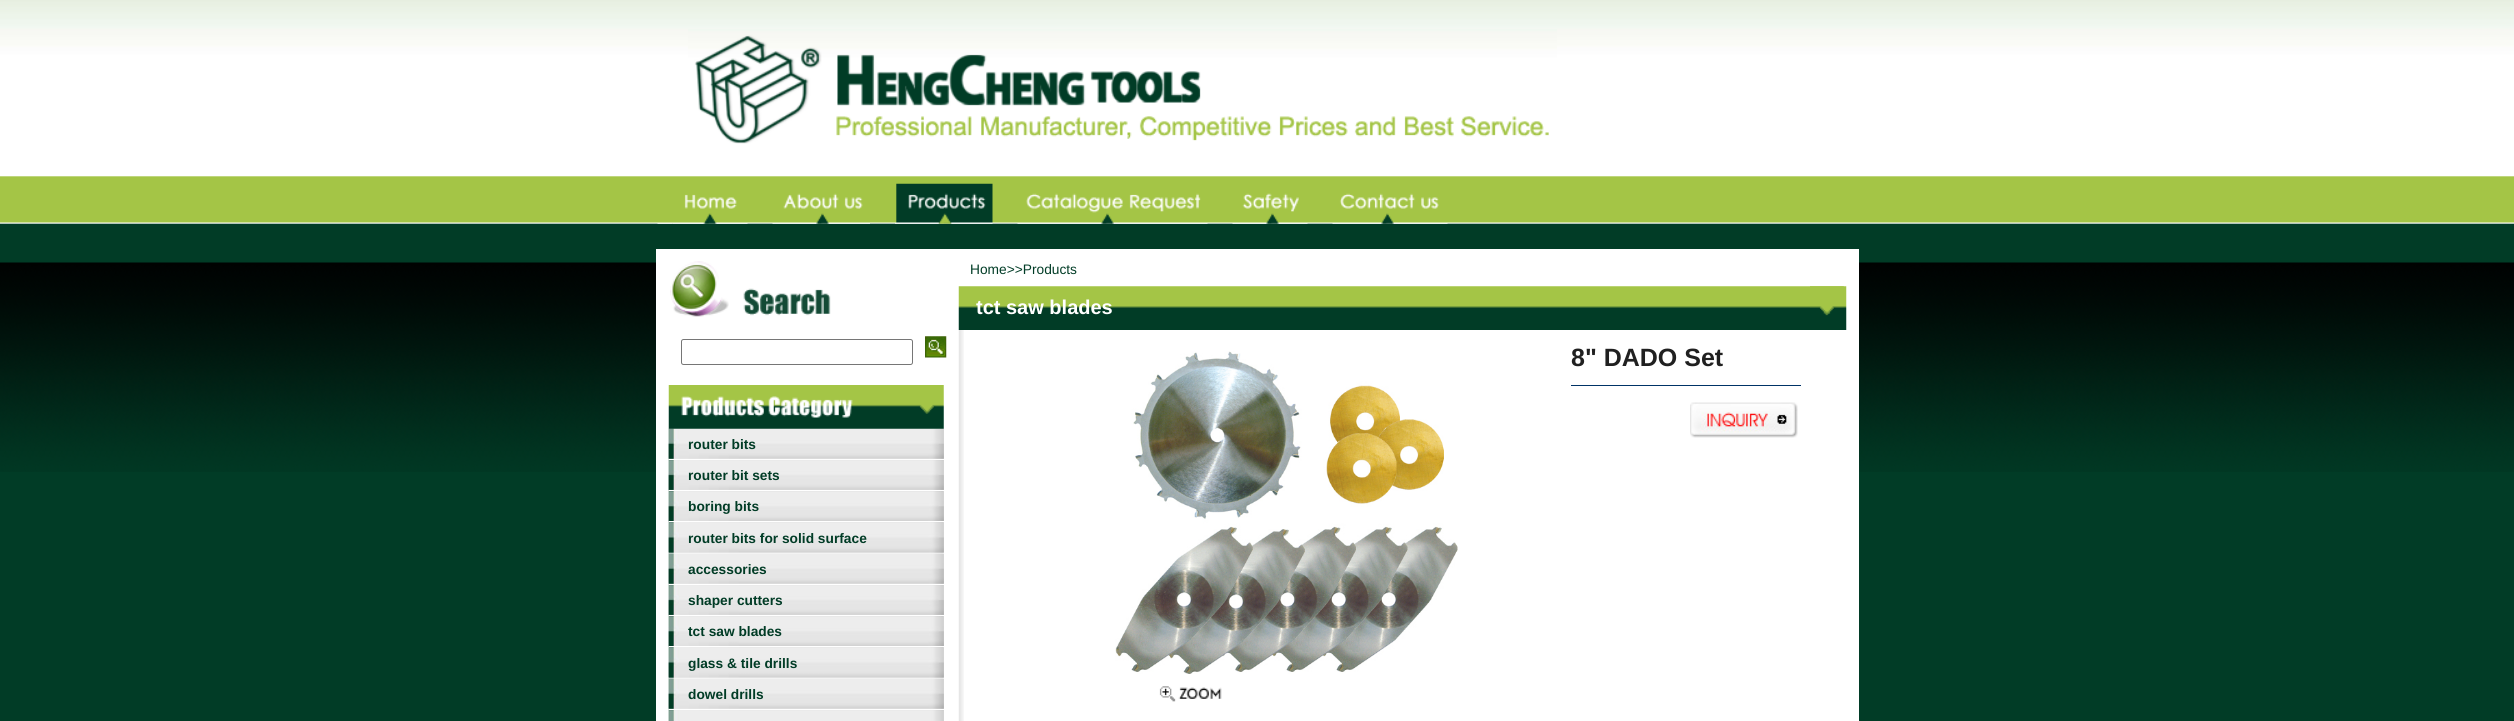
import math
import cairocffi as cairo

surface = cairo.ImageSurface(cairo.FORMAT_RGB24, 2514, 721)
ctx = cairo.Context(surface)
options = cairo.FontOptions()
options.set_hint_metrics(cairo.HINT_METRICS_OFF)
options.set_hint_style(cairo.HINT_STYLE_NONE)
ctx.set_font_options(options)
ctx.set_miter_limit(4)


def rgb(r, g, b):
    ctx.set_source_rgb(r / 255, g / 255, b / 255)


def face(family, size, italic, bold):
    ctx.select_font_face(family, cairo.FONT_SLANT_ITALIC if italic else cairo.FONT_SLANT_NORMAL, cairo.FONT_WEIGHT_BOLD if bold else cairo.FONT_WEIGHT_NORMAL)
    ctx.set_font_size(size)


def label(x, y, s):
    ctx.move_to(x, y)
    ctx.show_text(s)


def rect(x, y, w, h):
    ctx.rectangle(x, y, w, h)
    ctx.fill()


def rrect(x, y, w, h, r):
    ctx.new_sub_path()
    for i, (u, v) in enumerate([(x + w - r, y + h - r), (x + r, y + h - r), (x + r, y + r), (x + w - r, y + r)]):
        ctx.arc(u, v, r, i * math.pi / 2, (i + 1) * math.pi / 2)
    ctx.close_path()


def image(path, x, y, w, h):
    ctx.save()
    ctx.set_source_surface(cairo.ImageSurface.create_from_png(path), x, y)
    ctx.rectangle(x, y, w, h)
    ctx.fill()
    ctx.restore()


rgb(1, 60, 38)
ctx.paint()
image('image0.png', 0, 0, 2514, 472)
image('image1.png', 688, 29, 869, 115)
image('image2.png', 657, 223, 16, 1)
image('image3.png', 672, 194, 76, 30)
image('image4.png', 772, 193, 98, 31)
image('image5.png', 895, 183, 98, 41)
image('image6.png', 1017, 193, 191, 31)
image('image7.png', 1232, 193, 76, 31)
image('image8.png', 1332, 193, 116, 31)
rgb(255, 255, 255)
rect(656, 249, 1203, 472)
face('Liberation Sans', 13.75, 0, 0)
rgb(1, 60, 38)
label(970, 274, 'Home>>Products')
image('image9.png', 958, 286, 889, 44)
face('Liberation Sans', 20, 0, 1)
rgb(255, 255, 255)
label(976, 314, 'tct saw blades')
image('image10.png', 1810, 286, 34, 30)
image('image11.png', 958, 330, 6, 391)
image('image12.png', 1115, 351, 343, 323)
image('image13.png', 1159, 686, 63, 16)
face('Liberation Sans', 25, 0, 1)
rgb(32, 32, 32)
label(1571, 366, '8" DADO Set')
rgb(0, 51, 102)
rect(1571, 385, 230, 1)
image('image14.png', 1690, 402, 108, 36)
image('image15.png', 670, 261, 161, 56)
rrect(681.5, 339.5, 231, 25, 2)
rgb(118, 118, 118)
ctx.set_line_width(1)
ctx.stroke()
image('image16.png', 925, 336, 22, 22)
image('image18.png', 668, 428, 276, 31)
image('image19.png', 668, 428, 276, 32)
image('image17.png', 668, 385, 276, 44)
rgb(255, 255, 255)
rect(669, 459, 275, 1)
face('Liberation Sans', 13.75, 0, 1)
rgb(1, 60, 38)
label(688, 449, 'router bits')
image('image20.png', 668, 460, 276, 30)
image('image21.png', 668, 460, 276, 32)
rgb(255, 255, 255)
rect(669, 490, 275, 1)
rgb(1, 60, 38)
label(688, 480, 'router bit sets')
image('image22.png', 668, 491, 276, 31)
image('image23.png', 668, 491, 276, 32)
rgb(255, 255, 255)
rect(669, 521, 275, 1)
rgb(1, 60, 38)
label(688, 511, 'boring bits')
image('image24.png', 668, 522, 276, 31)
image('image25.png', 668, 522, 276, 32)
rgb(255, 255, 255)
rect(669, 553, 275, 1)
rgb(1, 60, 38)
label(688, 543, 'router bits for solid surface')
image('image26.png', 668, 553, 276, 31)
image('image27.png', 668, 553, 276, 32)
rgb(255, 255, 255)
rect(669, 584, 275, 1)
rgb(1, 60, 38)
label(688, 574, 'accessories')
image('image28.png', 668, 585, 276, 30)
image('image29.png', 668, 585, 276, 32)
rgb(255, 255, 255)
rect(669, 615, 275, 1)
rgb(1, 60, 38)
label(688, 605, 'shaper cutters')
image('image22.png', 668, 616, 276, 31)
image('image30.png', 668, 616, 276, 32)
rgb(255, 255, 255)
rect(669, 646, 275, 1)
rgb(1, 60, 38)
label(688, 636, 'tct saw blades')
image('image24.png', 668, 647, 276, 31)
image('image31.png', 668, 647, 276, 32)
rgb(255, 255, 255)
rect(669, 678, 275, 1)
rgb(1, 60, 38)
label(688, 668, 'glass & tile drills')
image('image26.png', 668, 678, 276, 31)
image('image32.png', 668, 678, 276, 32)
rgb(255, 255, 255)
rect(669, 709, 275, 1)
rgb(1, 60, 38)
label(688, 699, 'dowel drills')
image('image33.png', 668, 710, 276, 11)
image('image34.png', 668, 710, 276, 11)
surface.write_to_png('render.png')
